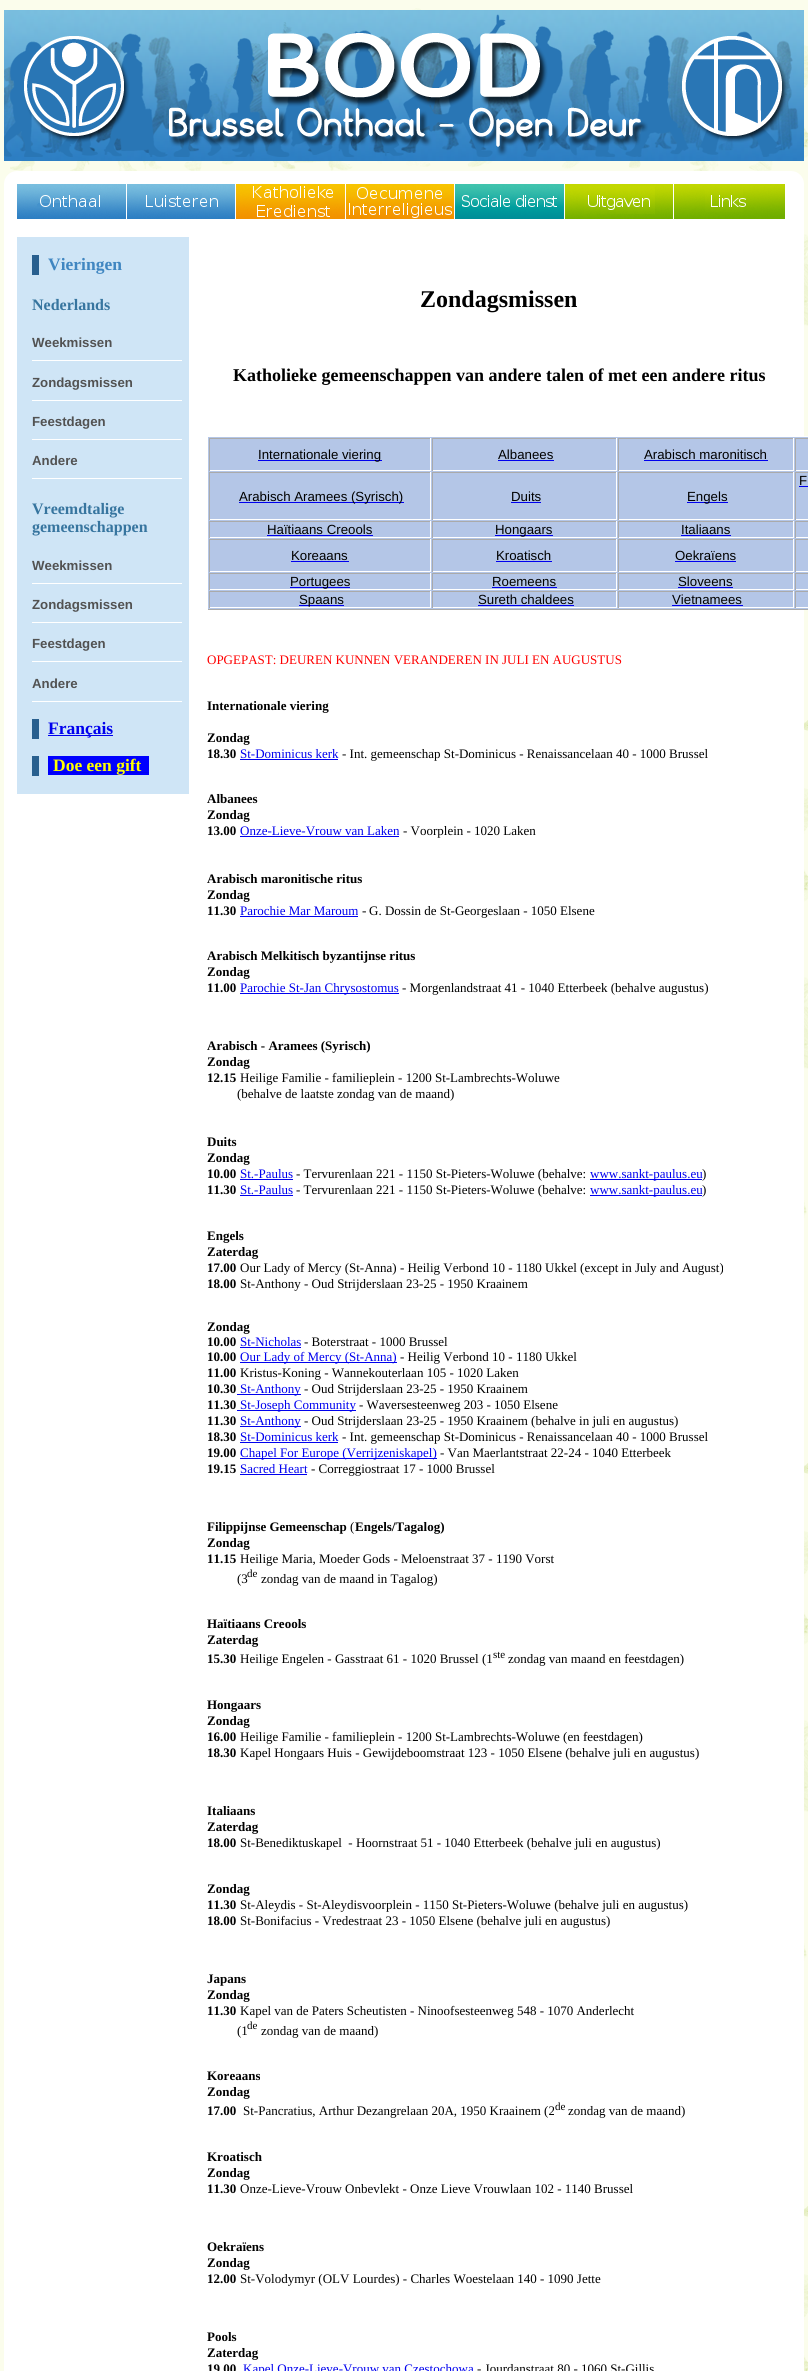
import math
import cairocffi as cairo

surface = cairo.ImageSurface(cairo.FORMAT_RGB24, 808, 2371)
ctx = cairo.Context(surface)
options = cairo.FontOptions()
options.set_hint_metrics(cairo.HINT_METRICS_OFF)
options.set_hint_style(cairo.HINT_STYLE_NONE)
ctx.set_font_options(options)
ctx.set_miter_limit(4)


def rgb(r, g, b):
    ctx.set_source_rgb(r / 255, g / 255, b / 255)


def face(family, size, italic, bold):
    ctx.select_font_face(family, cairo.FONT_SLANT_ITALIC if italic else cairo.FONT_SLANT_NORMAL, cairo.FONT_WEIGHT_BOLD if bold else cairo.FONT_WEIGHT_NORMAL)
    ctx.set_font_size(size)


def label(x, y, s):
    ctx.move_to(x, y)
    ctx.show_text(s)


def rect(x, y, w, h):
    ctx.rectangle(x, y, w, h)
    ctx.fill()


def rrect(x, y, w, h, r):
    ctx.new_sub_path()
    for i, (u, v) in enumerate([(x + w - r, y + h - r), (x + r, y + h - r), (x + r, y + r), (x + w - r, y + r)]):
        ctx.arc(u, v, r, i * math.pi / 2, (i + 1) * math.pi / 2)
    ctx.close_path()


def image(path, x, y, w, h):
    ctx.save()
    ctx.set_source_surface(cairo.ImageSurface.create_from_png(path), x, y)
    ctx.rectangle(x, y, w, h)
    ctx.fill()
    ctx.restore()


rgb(255, 255, 255)
ctx.paint()
image('image0.png', 0, 0, 808, 2371)
image('image1.png', 4, 10, 800, 151)
rgb(255, 255, 255)
rrect(4, 171, 800, 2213, 13)
ctx.fill()
image('image2.png', 17, 184, 109, 35)
image('image3.png', 127, 184, 108, 35)
image('image4.png', 236, 184, 109, 35)
image('image5.png', 346, 184, 108, 35)
image('image6.png', 455, 184, 109, 35)
image('image7.png', 565, 184, 108, 35)
image('image8.png', 674, 184, 111, 35)
rgb(207, 229, 246)
rect(17, 237, 172, 557)
rgb(41, 96, 143)
rect(32, 255, 7, 20)
face('Liberation Serif', 17.5, 0, 1)
rgb(64, 134, 193)
label(48, 270, 'Vieringen')
face('Liberation Serif', 16, 0, 1)
rgb(55, 117, 159)
label(32, 310, 'Nederlands')
rgb(255, 255, 255)
rect(32, 360, 150, 1)
face('Liberation Sans', 13.25, 0, 1)
rgb(82, 82, 82)
label(32, 347, 'Weekmissen')
rgb(255, 255, 255)
rect(32, 400, 150, 1)
rgb(82, 82, 82)
label(32, 387, 'Zondagsmissen')
rgb(255, 255, 255)
rect(32, 439, 150, 1)
rgb(82, 82, 82)
label(32, 426, 'Feestdagen')
rgb(255, 255, 255)
rect(32, 478, 150, 1)
rgb(82, 82, 82)
label(32, 465, 'Andere')
face('Liberation Serif', 16, 0, 1)
rgb(55, 117, 159)
label(32, 514, 'Vreemdtalige')
label(32, 532, 'gemeenschappen')
rgb(255, 255, 255)
rect(32, 583, 150, 1)
face('Liberation Sans', 13.25, 0, 1)
rgb(82, 82, 82)
label(32, 570, 'Weekmissen')
rgb(255, 255, 255)
rect(32, 622, 150, 1)
rgb(82, 82, 82)
label(32, 609, 'Zondagsmissen')
rgb(255, 255, 255)
rect(32, 661, 150, 1)
rgb(82, 82, 82)
label(32, 648, 'Feestdagen')
rgb(255, 255, 255)
rect(32, 701, 150, 1)
rgb(82, 82, 82)
label(32, 688, 'Andere')
rgb(41, 96, 143)
rect(32, 719, 7, 20)
rgb(0, 0, 238)
rect(48, 735, 65, 1)
face('Liberation Serif', 17.5, 0, 1)
label(48, 734, 'Français')
rgb(41, 96, 143)
rect(32, 756, 7, 20)
rgb(0, 0, 255)
rect(48, 756, 101, 19)
rgb(0, 0, 238)
rect(48, 772, 101, 1)
rgb(255, 255, 0)
label(53, 771, 'Doe een gift')
face('Liberation Serif', 24, 0, 1)
rgb(0, 0, 0)
label(420, 307, 'Zondagsmissen')
face('Liberation Serif', 18, 0, 1)
label(233, 381, 'Katholieke gemeenschappen van andere talen of met een andere ritus')
rgb(180, 198, 231)
rect(208, 437, 600, 172)
rgb(255, 255, 255)
rect(804, 436, 4, 1)
rgb(170, 170, 170)
rect(207, 609, 601, 1)
rgb(255, 255, 255)
rect(207, 609, 1, 1)
rgb(170, 170, 170)
rect(209, 438, 222, 1)
rgb(255, 255, 255)
rect(430, 438, 1, 33)
rect(209, 470, 222, 1)
rgb(170, 170, 170)
rect(209, 438, 1, 33)
rgb(0, 0, 238)
rect(258, 460, 124, 1)
face('Liberation Sans', 13.25, 0, 0)
rgb(0, 0, 0)
label(258, 459, 'Internationale viering')
rgb(170, 170, 170)
rect(432, 438, 185, 1)
rgb(255, 255, 255)
rect(616, 438, 1, 33)
rect(432, 470, 185, 1)
rgb(170, 170, 170)
rect(432, 438, 1, 33)
rgb(0, 0, 0)
label(498, 459, 'Albanees')
rgb(0, 0, 238)
rect(498, 460, 56, 1)
rgb(170, 170, 170)
rect(618, 438, 176, 1)
rgb(255, 255, 255)
rect(793, 438, 1, 33)
rect(618, 470, 176, 1)
rgb(170, 170, 170)
rect(618, 438, 1, 33)
rgb(0, 0, 0)
label(644, 459, 'Arabisch maronitisch')
rgb(0, 0, 238)
rect(644, 460, 124, 1)
rgb(170, 170, 170)
rect(795, 438, 13, 1)
rgb(255, 255, 255)
rect(795, 470, 13, 1)
rgb(170, 170, 170)
rect(795, 438, 1, 33)
rect(795, 472, 13, 1)
rgb(255, 255, 255)
rect(795, 519, 13, 1)
rgb(170, 170, 170)
rect(795, 472, 1, 48)
rgb(0, 0, 0)
label(799, 485, 'F')
rgb(0, 0, 238)
rect(799, 486, 9, 1)
rgb(170, 170, 170)
rect(209, 472, 222, 1)
rgb(255, 255, 255)
rect(430, 472, 1, 48)
rect(209, 519, 222, 1)
rgb(170, 170, 170)
rect(209, 472, 1, 48)
rgb(0, 0, 238)
rect(239, 502, 165, 1)
rgb(0, 0, 0)
label(239, 501, 'Arabisch Aramees (Syrisch)')
rgb(170, 170, 170)
rect(432, 472, 185, 1)
rgb(255, 255, 255)
rect(616, 472, 1, 48)
rect(432, 519, 185, 1)
rgb(170, 170, 170)
rect(432, 472, 1, 48)
rgb(0, 0, 0)
label(511, 501, 'Duits')
rgb(0, 0, 238)
rect(511, 502, 30, 1)
rgb(170, 170, 170)
rect(618, 472, 176, 1)
rgb(255, 255, 255)
rect(793, 472, 1, 48)
rect(618, 519, 176, 1)
rgb(170, 170, 170)
rect(618, 472, 1, 48)
rgb(0, 0, 238)
rect(687, 502, 41, 1)
rgb(0, 0, 0)
label(687, 501, 'Engels')
rgb(170, 170, 170)
rect(209, 521, 222, 1)
rgb(255, 255, 255)
rect(430, 521, 1, 17)
rect(209, 537, 222, 1)
rgb(170, 170, 170)
rect(209, 521, 1, 17)
rgb(0, 0, 0)
label(267, 534, 'Haïtiaans Creools')
rgb(0, 0, 238)
rect(267, 535, 106, 1)
rgb(170, 170, 170)
rect(432, 521, 185, 1)
rgb(255, 255, 255)
rect(616, 521, 1, 17)
rect(432, 537, 185, 1)
rgb(170, 170, 170)
rect(432, 521, 1, 17)
rgb(0, 0, 238)
rect(495, 535, 58, 1)
rgb(0, 0, 0)
label(495, 534, 'Hongaars')
rgb(170, 170, 170)
rect(618, 521, 176, 1)
rgb(255, 255, 255)
rect(793, 521, 1, 17)
rect(618, 537, 176, 1)
rgb(170, 170, 170)
rect(618, 521, 1, 17)
rgb(0, 0, 0)
label(681, 534, 'Italiaans')
rgb(0, 0, 238)
rect(681, 535, 50, 1)
rgb(170, 170, 170)
rect(795, 521, 13, 1)
rgb(255, 255, 255)
rect(795, 537, 13, 1)
rgb(170, 170, 170)
rect(795, 521, 1, 17)
rect(209, 539, 222, 1)
rgb(255, 255, 255)
rect(430, 539, 1, 33)
rect(209, 571, 222, 1)
rgb(170, 170, 170)
rect(209, 539, 1, 33)
rgb(0, 0, 0)
label(291, 560, 'Koreaans')
rgb(0, 0, 238)
rect(291, 561, 58, 1)
rgb(170, 170, 170)
rect(432, 539, 185, 1)
rgb(255, 255, 255)
rect(616, 539, 1, 33)
rect(432, 571, 185, 1)
rgb(170, 170, 170)
rect(432, 539, 1, 33)
rgb(0, 0, 0)
label(496, 560, 'Kroatisch')
rgb(0, 0, 238)
rect(496, 561, 56, 1)
rgb(170, 170, 170)
rect(618, 539, 176, 1)
rgb(255, 255, 255)
rect(793, 539, 1, 33)
rect(618, 571, 176, 1)
rgb(170, 170, 170)
rect(618, 539, 1, 33)
rgb(0, 0, 0)
label(675, 560, 'Oekraïens')
rgb(0, 0, 238)
rect(675, 561, 61, 1)
rgb(170, 170, 170)
rect(795, 539, 13, 1)
rgb(255, 255, 255)
rect(795, 571, 13, 1)
rgb(170, 170, 170)
rect(795, 539, 1, 33)
rect(209, 573, 222, 1)
rgb(255, 255, 255)
rect(430, 573, 1, 17)
rect(209, 589, 222, 1)
rgb(170, 170, 170)
rect(209, 573, 1, 17)
rgb(0, 0, 238)
rect(290, 587, 60, 1)
rgb(0, 0, 0)
label(290, 586, 'Portugees')
rgb(170, 170, 170)
rect(432, 573, 185, 1)
rgb(255, 255, 255)
rect(616, 573, 1, 17)
rect(432, 589, 185, 1)
rgb(170, 170, 170)
rect(432, 573, 1, 17)
rgb(0, 0, 0)
label(492, 586, 'Roemeens')
rgb(0, 0, 238)
rect(492, 587, 65, 1)
rgb(170, 170, 170)
rect(618, 573, 176, 1)
rgb(255, 255, 255)
rect(793, 573, 1, 17)
rect(618, 589, 176, 1)
rgb(170, 170, 170)
rect(618, 573, 1, 17)
rgb(0, 0, 0)
label(678, 586, 'Sloveens')
rgb(0, 0, 238)
rect(678, 587, 55, 1)
rgb(170, 170, 170)
rect(795, 573, 13, 1)
rgb(255, 255, 255)
rect(795, 589, 13, 1)
rgb(170, 170, 170)
rect(795, 573, 1, 17)
rect(209, 591, 222, 1)
rgb(255, 255, 255)
rect(430, 591, 1, 17)
rect(209, 607, 222, 1)
rgb(170, 170, 170)
rect(209, 591, 1, 17)
rgb(0, 0, 238)
rect(299, 605, 45, 1)
rgb(0, 0, 0)
label(299, 604, 'Spaans')
rgb(170, 170, 170)
rect(432, 591, 185, 1)
rgb(255, 255, 255)
rect(616, 591, 1, 17)
rect(432, 607, 185, 1)
rgb(170, 170, 170)
rect(432, 591, 1, 17)
rgb(0, 0, 0)
label(478, 604, 'Sureth chaldees')
rgb(0, 0, 238)
rect(478, 605, 96, 1)
rgb(170, 170, 170)
rect(618, 591, 176, 1)
rgb(255, 255, 255)
rect(793, 591, 1, 17)
rect(618, 607, 176, 1)
rgb(170, 170, 170)
rect(618, 591, 1, 17)
rgb(0, 0, 0)
label(672, 604, 'Vietnamees')
rgb(0, 0, 238)
rect(672, 605, 71, 1)
rgb(170, 170, 170)
rect(795, 591, 13, 1)
rgb(255, 255, 255)
rect(795, 607, 13, 1)
rgb(170, 170, 170)
rect(795, 591, 1, 17)
face('Liberation Serif', 13, 0, 0)
rgb(255, 0, 0)
label(207, 664, 'OPGEPAST: DEUREN KUNNEN VERANDEREN IN JULI EN AUGUSTUS')
face('Liberation Serif', 13, 0, 1)
rgb(0, 0, 0)
label(207, 710, 'Internationale viering')
label(207, 742, 'Zondag')
label(207, 758, '18.30')
face('Liberation Serif', 13, 0, 0)
rgb(0, 0, 238)
label(240, 758, 'St-Dominicus kerk')
rect(240, 759, 98, 1)
rgb(0, 0, 0)
label(342, 758, '- Int. gemeenschap St-Dominicus - Renaissancelaan 40 - 1000 Brussel')
face('Liberation Serif', 13, 0, 1)
label(207, 803, 'Albanees')
label(207, 819, 'Zondag')
label(207, 835, '13.00')
face('Liberation Serif', 13, 0, 0)
rgb(0, 0, 238)
label(240, 835, 'Onze-Lieve-Vrouw van Laken')
rect(240, 836, 159, 1)
rgb(0, 0, 0)
label(403, 835, '- Voorplein - 1020 Laken')
face('Liberation Serif', 13, 0, 1)
label(207, 883, 'Arabisch maronitische ritus')
label(207, 899, 'Zondag')
label(207, 915, '11.30')
face('Liberation Serif', 13, 0, 0)
rgb(0, 0, 238)
label(240, 915, 'Parochie Mar Maroum')
rect(240, 916, 118, 1)
face('Liberation Serif', 13.25, 0, 0)
rgb(0, 0, 0)
label(362, 915, '-')
face('Liberation Serif', 13, 0, 0)
label(369, 915, 'G. Dossin de St-Georgeslaan - 1050 Elsene')
face('Liberation Serif', 13, 0, 1)
label(207, 960, 'Arabisch Melkitisch byzantijnse ritus')
label(207, 976, 'Zondag')
label(207, 992, '11.00')
rgb(0, 0, 238)
rect(240, 993, 159, 1)
face('Liberation Serif', 13, 0, 0)
label(240, 992, 'Parochie St-Jan Chrysostomus')
rgb(0, 0, 0)
label(402, 992, '- Morgenlandstraat 41 - 1040 Etterbeek (behalve augustus)')
face('Liberation Serif', 13, 0, 1)
label(207, 1050, 'Arabisch - Aramees (Syrisch)')
label(207, 1066, 'Zondag')
label(207, 1082, '12.15')
face('Liberation Serif', 13, 0, 0)
label(240, 1082, 'Heilige Familie - familieplein - 1200 St-Lambrechts-Woluwe')
label(237, 1098, '(behalve de laatste zondag van de maand)')
face('Liberation Serif', 13, 0, 1)
label(207, 1146, 'Duits')
label(207, 1162, 'Zondag')
label(207, 1178, '10.00')
face('Liberation Serif', 13, 0, 0)
rgb(0, 0, 238)
label(240, 1178, 'St.-Paulus')
rect(240, 1179, 53, 1)
rgb(0, 0, 0)
label(296, 1178, '- Tervurenlaan 221 - 1150 St-Pieters-Woluwe (behalve:')
rgb(0, 0, 238)
rect(590, 1179, 112, 1)
label(590, 1178, 'www.sankt-paulus.eu')
rgb(0, 0, 0)
label(702, 1178, ')')
face('Liberation Serif', 13, 0, 1)
label(207, 1194, '11.30')
face('Liberation Serif', 13, 0, 0)
rgb(0, 0, 238)
label(240, 1194, 'St.-Paulus')
rect(240, 1195, 53, 1)
rgb(0, 0, 0)
label(296, 1194, '- Tervurenlaan 221 - 1150 St-Pieters-Woluwe (behalve:')
rgb(0, 0, 238)
rect(590, 1195, 112, 1)
label(590, 1194, 'www.sankt-paulus.eu')
rgb(0, 0, 0)
label(702, 1194, ')')
face('Liberation Serif', 13, 0, 1)
label(207, 1240, 'Engels')
label(207, 1256, 'Zaterdag')
label(207, 1272, '17.00')
face('Liberation Serif', 13, 0, 0)
label(240, 1272, 'Our Lady of Mercy (St-Anna) - Heilig Verbond 10 - 1180 Ukkel (except in July and August)')
face('Liberation Serif', 13, 0, 1)
label(207, 1288, '18.00')
face('Liberation Serif', 13, 0, 0)
label(240, 1288, 'St-Anthony - Oud Strijderslaan 23-25 - 1950 Kraainem')
face('Liberation Serif', 13, 0, 1)
label(207, 1331, 'Zondag')
label(207, 1346, '10.00')
face('Liberation Serif', 13, 0, 0)
rgb(0, 0, 238)
label(240, 1346, 'St-Nicholas')
rect(240, 1347, 61, 1)
rgb(0, 0, 0)
label(304, 1346, '- Boterstraat - 1000 Brussel')
face('Liberation Serif', 13, 0, 1)
label(207, 1361, '10.00')
rgb(0, 0, 238)
rect(240, 1362, 157, 1)
face('Liberation Serif', 13, 0, 0)
label(240, 1361, 'Our Lady of Mercy (St-Anna)')
rgb(0, 0, 0)
label(400, 1361, '- Heilig Verbond 10 - 1180 Ukkel')
face('Liberation Serif', 13, 0, 1)
label(207, 1377, '11.00')
face('Liberation Serif', 13, 0, 0)
label(240, 1377, 'Kristus-Koning - Wannekouterlaan 105 - 1020 Laken')
face('Liberation Serif', 13, 0, 1)
label(207, 1393, '10.30')
rgb(0, 0, 238)
rect(237, 1394, 64, 1)
face('Liberation Serif', 13, 0, 0)
label(240, 1393, 'St-Anthony')
rgb(0, 0, 0)
label(304, 1393, '- Oud Strijderslaan 23-25 - 1950 Kraainem')
face('Liberation Serif', 13, 0, 1)
label(207, 1409, '11.30')
rgb(0, 0, 238)
rect(237, 1410, 119, 1)
face('Liberation Serif', 13, 0, 0)
label(240, 1409, 'St-Joseph Community')
rgb(0, 0, 0)
label(359, 1409, '- Waversesteenweg 203 - 1050 Elsene')
face('Liberation Serif', 13, 0, 1)
label(207, 1425, '11.30')
rgb(0, 0, 238)
rect(240, 1426, 61, 1)
face('Liberation Serif', 13, 0, 0)
label(240, 1425, 'St-Anthony')
rgb(0, 0, 0)
label(304, 1425, '- Oud Strijderslaan 23-25 - 1950 Kraainem (behalve in juli en augustus)')
face('Liberation Serif', 13, 0, 1)
label(207, 1441, '18.30')
face('Liberation Serif', 13, 0, 0)
rgb(0, 0, 238)
label(240, 1441, 'St-Dominicus kerk')
rect(240, 1442, 98, 1)
rgb(0, 0, 0)
label(342, 1441, '- Int. gemeenschap St-Dominicus - Renaissancelaan 40 - 1000 Brussel')
face('Liberation Serif', 13, 0, 1)
label(207, 1457, '19.00')
rgb(0, 0, 238)
rect(240, 1458, 197, 1)
face('Liberation Serif', 13, 0, 0)
label(240, 1457, 'Chapel For Europe (Verrijzeniskapel)')
rgb(0, 0, 0)
label(440, 1457, '- Van Maerlantstraat 22-24 - 1040 Etterbeek')
face('Liberation Serif', 13, 0, 1)
label(207, 1473, '19.15')
face('Liberation Serif', 13, 0, 0)
rgb(0, 0, 238)
label(240, 1473, 'Sacred Heart')
rect(240, 1474, 67, 1)
rgb(0, 0, 0)
label(311, 1473, '- Correggiostraat 17 - 1000 Brussel')
face('Liberation Serif', 13, 0, 1)
label(207, 1531, 'Filippijnse Gemeenschap')
face('Liberation Serif', 13, 0, 0)
label(350, 1531, '(')
face('Liberation Serif', 13, 0, 1)
label(355, 1531, 'Engels/Tagalog)')
label(207, 1547, 'Zondag')
label(207, 1563, '11.15')
face('Liberation Serif', 13, 0, 0)
label(240, 1563, 'Heilige Maria, Moeder Gods - Meloenstraat 37 - 1190 Vorst')
label(237, 1583, '(3')
face('Liberation Serif', 11, 0, 0)
label(247, 1577, 'de')
face('Liberation Serif', 13, 0, 0)
label(261, 1583, 'zondag van de maand in Tagalog)')
face('Liberation Serif', 13, 0, 1)
label(207, 1628, 'Haïtiaans Creools')
label(207, 1644, 'Zaterdag')
label(207, 1663, '15.30')
face('Liberation Serif', 13, 0, 0)
label(240, 1663, 'Heilige Engelen - Gasstraat 61 - 1020 Brussel (1')
face('Liberation Serif', 11, 0, 0)
label(493, 1658, 'ste')
face('Liberation Serif', 13, 0, 0)
label(508, 1663, 'zondag van maand en feestdagen)')
face('Liberation Serif', 13, 0, 1)
label(207, 1709, 'Hongaars')
label(207, 1725, 'Zondag')
label(207, 1741, '16.00')
face('Liberation Serif', 13, 0, 0)
label(240, 1741, 'Heilige Familie - familieplein - 1200 St-Lambrechts-Woluwe (en feestdagen)')
face('Liberation Serif', 13, 0, 1)
label(207, 1757, '18.30')
face('Liberation Serif', 13, 0, 0)
label(240, 1757, 'Kapel Hongaars Huis - Gewijdeboomstraat 123 - 1050 Elsene (behalve juli en augustus)')
face('Liberation Serif', 13, 0, 1)
label(207, 1815, 'Italiaans')
label(207, 1831, 'Zaterdag')
label(207, 1847, '18.00')
face('Liberation Serif', 13, 0, 0)
label(240, 1847, 'St-Benediktuskapel  - Hoornstraat 51 - 1040 Etterbeek (behalve juli en augustus)')
face('Liberation Serif', 13, 0, 1)
label(207, 1893, 'Zondag')
label(207, 1909, '11.30')
face('Liberation Serif', 13, 0, 0)
label(240, 1909, 'St-Aleydis - St-Aleydisvoorplein - 1150 St-Pieters-Woluwe (behalve juli en augustus)')
face('Liberation Serif', 13, 0, 1)
label(207, 1925, '18.00')
face('Liberation Serif', 13, 0, 0)
label(240, 1925, 'St-Bonifacius - Vredestraat 23 - 1050 Elsene (behalve juli en augustus)')
face('Liberation Serif', 13, 0, 1)
label(207, 1983, 'Japans')
label(207, 1999, 'Zondag')
label(207, 2015, '11.30')
face('Liberation Serif', 13, 0, 0)
label(240, 2015, 'Kapel van de Paters Scheutisten - Ninoofsesteenweg 548 - 1070 Anderlecht')
label(237, 2035, '(1')
face('Liberation Serif', 11, 0, 0)
label(247, 2029, 'de')
face('Liberation Serif', 13, 0, 0)
label(261, 2035, 'zondag van de maand)')
face('Liberation Serif', 13, 0, 1)
label(207, 2080, 'Koreaans')
label(207, 2096, 'Zondag')
label(207, 2115, '17.00')
face('Liberation Serif', 13, 0, 0)
label(243, 2115, 'St-Pancratius, Arthur Dezangrelaan 20A, 1950 Kraainem (2')
face('Liberation Serif', 11, 0, 0)
label(555, 2110, 'de')
face('Liberation Serif', 13, 0, 0)
label(568, 2115, 'zondag van de maand)')
face('Liberation Serif', 13, 0, 1)
label(207, 2161, 'Kroatisch')
label(207, 2177, 'Zondag')
label(207, 2193, '11.30')
face('Liberation Serif', 13, 0, 0)
label(240, 2193, 'Onze-Lieve-Vrouw Onbevlekt - Onze Lieve Vrouwlaan 102 - 1140 Brussel')
face('Liberation Serif', 13, 0, 1)
label(207, 2251, 'Oekraïens')
label(207, 2267, 'Zondag')
label(207, 2283, '12.00')
face('Liberation Serif', 13, 0, 0)
label(240, 2283, 'St-Volodymyr (OLV Lourdes) - Charles Woestelaan 140 - 1090 Jette')
face('Liberation Serif', 13, 0, 1)
label(207, 2341, 'Pools')
label(207, 2357, 'Zaterdag')
label(207, 2373, '19.00')
face('Liberation Serif', 13, 0, 0)
rgb(0, 0, 238)
label(243, 2373, 'Kapel Onze-Lieve-Vrouw van Częstochowa')
rgb(0, 0, 0)
label(477, 2373, '- Jourdanstraat 80 - 1060 St-Gillis')
surface.write_to_png('render.png')
